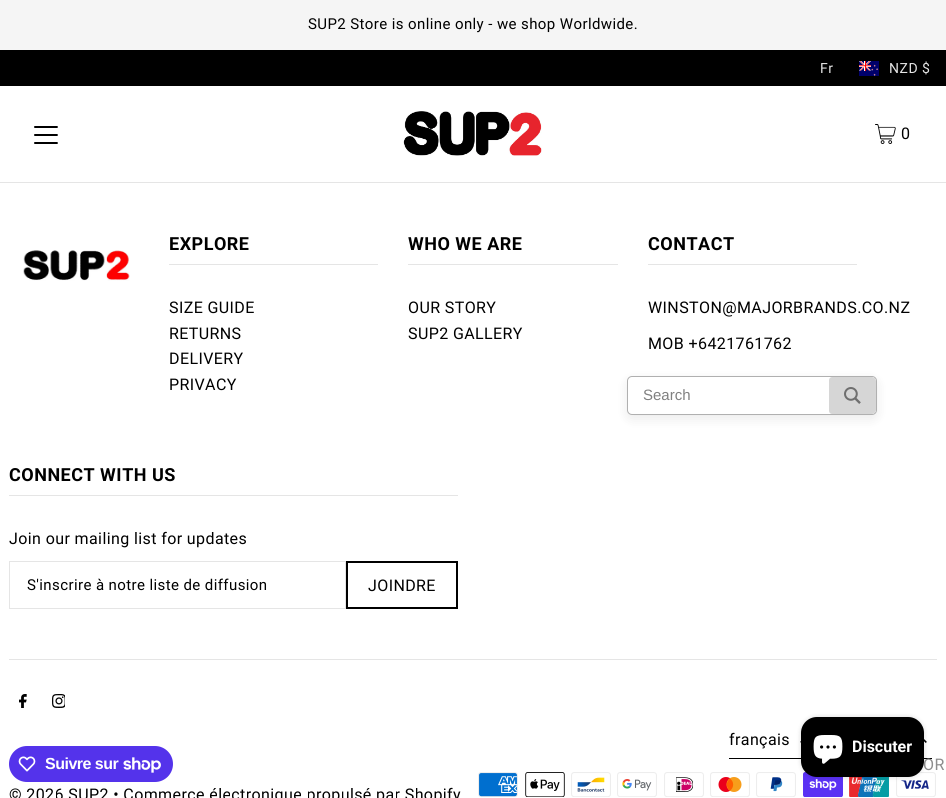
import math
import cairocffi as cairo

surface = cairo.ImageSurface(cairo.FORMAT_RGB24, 946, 798)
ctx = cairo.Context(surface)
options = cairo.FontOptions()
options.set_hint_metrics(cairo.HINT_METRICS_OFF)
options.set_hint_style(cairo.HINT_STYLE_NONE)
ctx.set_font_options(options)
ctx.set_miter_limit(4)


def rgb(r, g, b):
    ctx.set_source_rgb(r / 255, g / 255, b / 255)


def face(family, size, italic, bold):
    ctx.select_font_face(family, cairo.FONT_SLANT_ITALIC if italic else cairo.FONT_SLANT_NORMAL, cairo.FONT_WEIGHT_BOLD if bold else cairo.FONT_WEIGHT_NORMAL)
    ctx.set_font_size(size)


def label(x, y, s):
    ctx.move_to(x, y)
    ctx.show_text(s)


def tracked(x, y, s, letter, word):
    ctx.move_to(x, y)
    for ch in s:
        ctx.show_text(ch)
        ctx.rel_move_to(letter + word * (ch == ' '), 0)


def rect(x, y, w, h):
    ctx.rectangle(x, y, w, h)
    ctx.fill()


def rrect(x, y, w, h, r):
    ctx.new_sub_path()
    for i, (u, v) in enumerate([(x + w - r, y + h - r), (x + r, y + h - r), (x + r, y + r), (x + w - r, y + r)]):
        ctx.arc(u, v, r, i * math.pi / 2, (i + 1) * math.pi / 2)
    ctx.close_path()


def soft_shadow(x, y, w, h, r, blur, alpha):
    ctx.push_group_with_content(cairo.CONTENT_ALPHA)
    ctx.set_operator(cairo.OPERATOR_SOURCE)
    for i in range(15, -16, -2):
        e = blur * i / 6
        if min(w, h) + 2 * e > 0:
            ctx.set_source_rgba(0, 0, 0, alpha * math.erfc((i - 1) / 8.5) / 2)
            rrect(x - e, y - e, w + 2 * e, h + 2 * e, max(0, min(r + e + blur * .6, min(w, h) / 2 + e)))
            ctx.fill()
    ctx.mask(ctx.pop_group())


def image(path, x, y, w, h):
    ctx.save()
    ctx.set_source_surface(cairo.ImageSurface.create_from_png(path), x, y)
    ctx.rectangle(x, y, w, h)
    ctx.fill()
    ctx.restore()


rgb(255, 255, 255)
ctx.paint()
rgb(245, 245, 245)
rect(0, 0, 946, 50)
face('Roboto', 15, 0, 0)
rgb(0, 0, 0)
tracked(308, 29, 'SUP2 Store is online only - we shop Worldwide.', 0.4, 0)
rect(0, 50, 946, 36)
face('Roboto', 14, 0, 0)
rgb(229, 229, 229)
tracked(820, 73, 'Fr', 0.5, 0)
image('image0.png', 859, 61, 20, 15)
tracked(889, 73, 'NZD $', 0.5, 0)
image('image1.png', 34, 126, 24, 18)
image('image2.png', 403, 111, 139, 45)
image('image3.png', 875, 124, 21, 20)
face('Roboto', 16, 0, 0)
rgb(0, 0, 0)
tracked(901, 139, '0', 0.4, 0)
rgb(0, 0, 0)
soft_shadow(627, 380, 250, 39, 5, 6, 0.08)
rgb(255, 255, 255)
rrect(627.5, 376.5, 249, 38, 4.5)
ctx.fill_preserve()
rgb(176, 176, 176)
ctx.set_line_width(1)
ctx.stroke()
face('Liberation Sans', 15, 0, 0)
rgb(128, 128, 128)
label(643, 400, 'Search')
rgb(214, 214, 214)
ctx.new_path()
ctx.move_to(832, 377)
ctx.line_to(872, 377)
ctx.curve_to(874, 377, 876, 379, 876, 381)
ctx.line_to(876, 410)
ctx.curve_to(876, 412, 874, 414, 872, 414)
ctx.line_to(832, 414)
ctx.curve_to(830.5, 414, 829, 412.5, 829, 411)
ctx.line_to(829, 380)
ctx.curve_to(829, 378.5, 830.5, 377, 832, 377)
ctx.close_path()
ctx.fill()
image('image4.png', 844, 387, 17, 17)
rgb(229, 229, 229)
rect(0, 182, 946, 1)
image('image5.png', 23, 250, 107, 31)
rect(169, 264, 209, 1)
face('Roboto', 18, 0, 1)
rgb(0, 0, 0)
tracked(169, 250, 'EXPLORE', 0.5, 0)
face('Roboto', 16, 0, 0)
tracked(169, 313, 'SIZE GUIDE', 0.4, 0)
tracked(169, 339, 'RETURNS', 0.4, 0)
tracked(169, 364, 'DELIVERY', 0.4, 0)
tracked(169, 390, 'PRIVACY', 0.4, 0)
rgb(229, 229, 229)
rect(408, 264, 210, 1)
face('Roboto', 18, 0, 1)
rgb(0, 0, 0)
tracked(408, 250, 'WHO WE ARE', 0.5, 0)
face('Roboto', 16, 0, 0)
tracked(408, 313, 'OUR STORY', 0.4, 0)
tracked(408, 339, 'SUP2 GALLERY', 0.4, 0)
rgb(229, 229, 229)
rect(648, 264, 209, 1)
face('Roboto', 18, 0, 1)
rgb(0, 0, 0)
tracked(648, 250, 'CONTACT', 0.5, 0)
face('Roboto', 16, 0, 0)
tracked(648, 313, 'WINSTON@MAJORBRANDS.CO.NZ', 0.4, 0)
tracked(648, 349, 'MOB +6421761762', 0.4, 0)
rgb(229, 229, 229)
rect(9, 495, 449, 1)
face('Roboto', 18, 0, 1)
rgb(0, 0, 0)
tracked(9, 481, 'CONNECT WITH US', 0.5, 0)
face('Roboto', 16, 0, 0)
tracked(9, 544, 'Join our mailing list for updates', 0.4, 0)
ctx.rectangle(9.5, 561.5, 336, 47)
rgb(229, 229, 229)
ctx.stroke()
face('Roboto', 15, 0, 0)
rgb(0, 0, 0)
tracked(27, 590, 'S\'inscrire à notre liste de diffusion', 0.4, 0)
ctx.rectangle(347, 562, 110, 46)
ctx.set_line_width(2)
ctx.stroke()
face('Roboto', 16, 0, 0)
tracked(368, 591, 'JOINDRE', 0.4, 0)
rgb(229, 229, 229)
rect(9, 659, 928, 1)
rgb(0, 0, 0)
rect(729, 758, 72, 1)
tracked(729, 745, 'français', 0.4, 0)
image('image6.png', 800, 741, 1, 2)
rect(924, 758, 8, 1)
image('image7.png', 924, 739, 3, 4)
image('image8.png', 478, 772, 40, 25)
image('image9.png', 525, 772, 40, 25)
image('image10.png', 571, 772, 40, 25)
image('image11.png', 617, 772, 40, 25)
image('image12.png', 664, 772, 40, 25)
image('image13.png', 710, 772, 40, 25)
image('image14.png', 756, 772, 40, 25)
image('image15.png', 803, 772, 40, 25)
image('image16.png', 849, 777, 40, 20)
image('image17.png', 896, 772, 40, 25)
image('image18.png', 19, 694, 8, 14)
image('image19.png', 52, 694, 13, 14)
rgb(84, 51, 235)
rrect(9, 746, 164, 36, 18)
ctx.fill()
image('image20.png', 18, 756, 18, 16)
face('Liberation Sans', 16, 0, 1)
rgb(255, 255, 255)
tracked(45, 769, 'Suivre sur', -0.5, 0)
image('image21.png', 123, 757, 38, 16)
face('Roboto', 16, 0, 0)
rgb(0, 0, 0)
tracked(9, 800, '© 2026 SUP2 • Commerce électronique propulsé par Shopify', 0.4, 0)
rgb(0, 0, 0)
soft_shadow(801, 717, 123, 60, 16, 2.5, 0.15)
rgb(0, 0, 0)
rrect(801, 717, 123, 60, 16)
ctx.fill()
image('image22.png', 813, 735, 30, 29)
face('Roboto', 16, 0, 1)
rgb(255, 255, 255)
label(852, 752, 'Discuter')
face('Roboto', 16, 0, 0)
rgb(141, 141, 141)
tracked(923, 770, 'OR', 0.4, 0)
surface.write_to_png('render.png')
